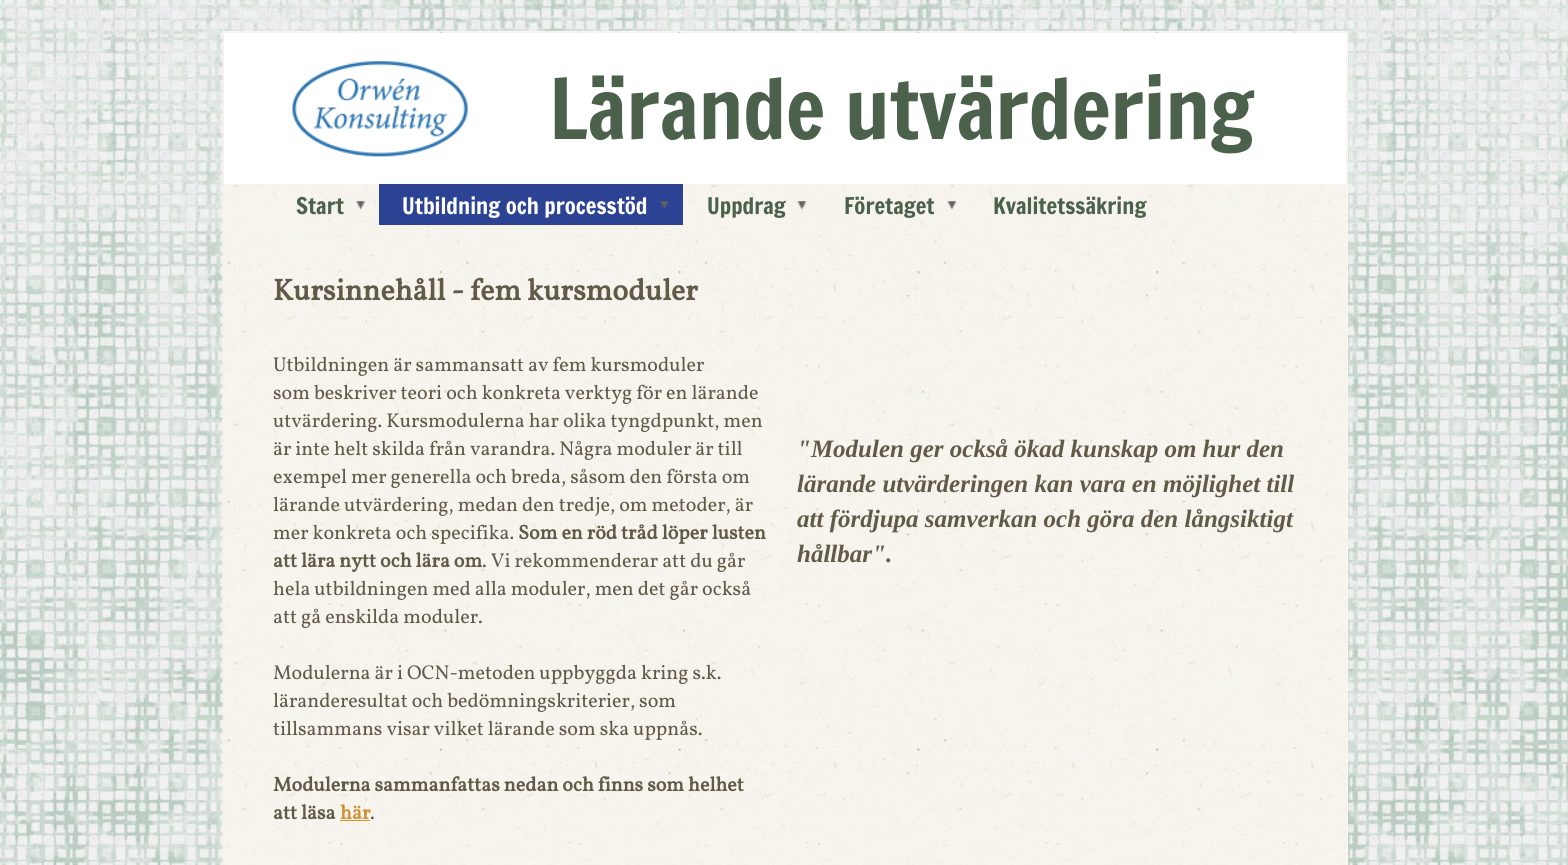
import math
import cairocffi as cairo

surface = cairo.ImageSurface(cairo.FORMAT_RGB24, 1568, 865)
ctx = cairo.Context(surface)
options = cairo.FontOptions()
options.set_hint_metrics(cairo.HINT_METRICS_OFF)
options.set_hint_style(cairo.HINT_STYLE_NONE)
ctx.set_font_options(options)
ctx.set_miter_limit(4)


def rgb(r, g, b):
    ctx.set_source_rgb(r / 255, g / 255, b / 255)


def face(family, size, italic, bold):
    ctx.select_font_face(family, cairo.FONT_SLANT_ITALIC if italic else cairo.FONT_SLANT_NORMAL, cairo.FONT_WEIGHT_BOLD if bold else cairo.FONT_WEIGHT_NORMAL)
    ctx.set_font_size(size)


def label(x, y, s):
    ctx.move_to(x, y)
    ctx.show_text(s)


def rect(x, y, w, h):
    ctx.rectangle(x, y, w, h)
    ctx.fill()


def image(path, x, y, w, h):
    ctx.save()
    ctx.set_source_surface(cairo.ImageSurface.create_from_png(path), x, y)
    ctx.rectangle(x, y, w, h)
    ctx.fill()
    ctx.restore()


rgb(255, 255, 255)
ctx.paint()
image('image0.png', 0, 0, 1568, 865)
rgb(255, 255, 255)
rect(223, 31, 1125, 834)
image('image1.png', 222, 31, 1126, 834)
rect(224, 33, 1122, 151)
image('image2.png', 292, 61, 176, 96)
face('Francois One', 82.5, 0, 0)
rgb(75, 97, 75)
label(549, 139, 'Lärande utvärdering')
image('image3.png', 356, 201, 9, 9)
face('Francois One', 22.5, 0, 0)
label(296, 214, 'Start')
rgb(44, 67, 148)
rect(379, 184, 304, 41)
image('image4.png', 660, 201, 9, 9)
rgb(255, 255, 255)
label(402, 214, 'Utbildning och processtöd')
image('image5.png', 797, 201, 10, 9)
rgb(75, 97, 75)
label(707, 214, 'Uppdrag')
image('image6.png', 947, 201, 10, 9)
label(844, 214, 'Företaget')
label(993, 214, 'Kvalitetssäkring')
face('Vollkorn', 30, 0, 1)
rgb(97, 90, 73)
label(273, 300, 'Kursinnehåll - fem kursmoduler')
face('Vollkorn', 20, 0, 0)
label(273, 371, 'Utbildningen är sammansatt av fem kursmoduler')
label(273, 399, 'som beskriver teori och konkreta verktyg för en lärande')
label(273, 427, 'utvärdering. Kursmodulerna har olika tyngdpunkt, men')
label(273, 455, 'är inte helt skilda från varandra. Några moduler är till')
label(273, 483, 'exempel mer generella och breda, såsom den första om')
label(273, 511, 'lärande utvärdering, medan den tredje, om metoder, är')
label(273, 539, 'mer konkreta och specifika.')
face('Vollkorn', 20, 0, 1)
label(518, 539, 'Som en röd tråd löper lusten')
label(273, 567, 'att lära nytt och lära om')
face('Vollkorn', 20, 0, 0)
label(482, 567, '. Vi rekommenderar att du går')
label(273, 595, 'hela utbildningen med alla moduler, men det går också')
label(273, 623, 'att gå enskilda moduler.')
label(273, 679, 'Modulerna är i OCN-metoden uppbyggda kring s.k.')
label(273, 707, 'läranderesultat och bedömningskriterier, som')
label(273, 735, 'tillsammans visar vilket lärande som ska uppnås.')
face('Vollkorn', 20, 0, 1)
label(273, 791, 'Modulerna sammanfattas nedan och finns som helhet')
label(273, 819, 'att läsa')
rgb(209, 146, 52)
label(340, 819, 'här')
face('Vollkorn', 20, 0, 0)
rgb(97, 90, 73)
label(370, 819, '.')
rgb(209, 146, 52)
rect(340, 820, 30, 1)
face('Liberation Serif', 25, 1, 1)
rgb(97, 90, 73)
label(797, 457, '"Modulen ger också ökad kunskap om hur den')
label(797, 492, 'lärande utvärderingen kan vara en möjlighet till')
label(797, 527, 'att fördjupa samverkan och göra den långsiktigt')
label(797, 562, 'hållbar".')
surface.write_to_png('render.png')
